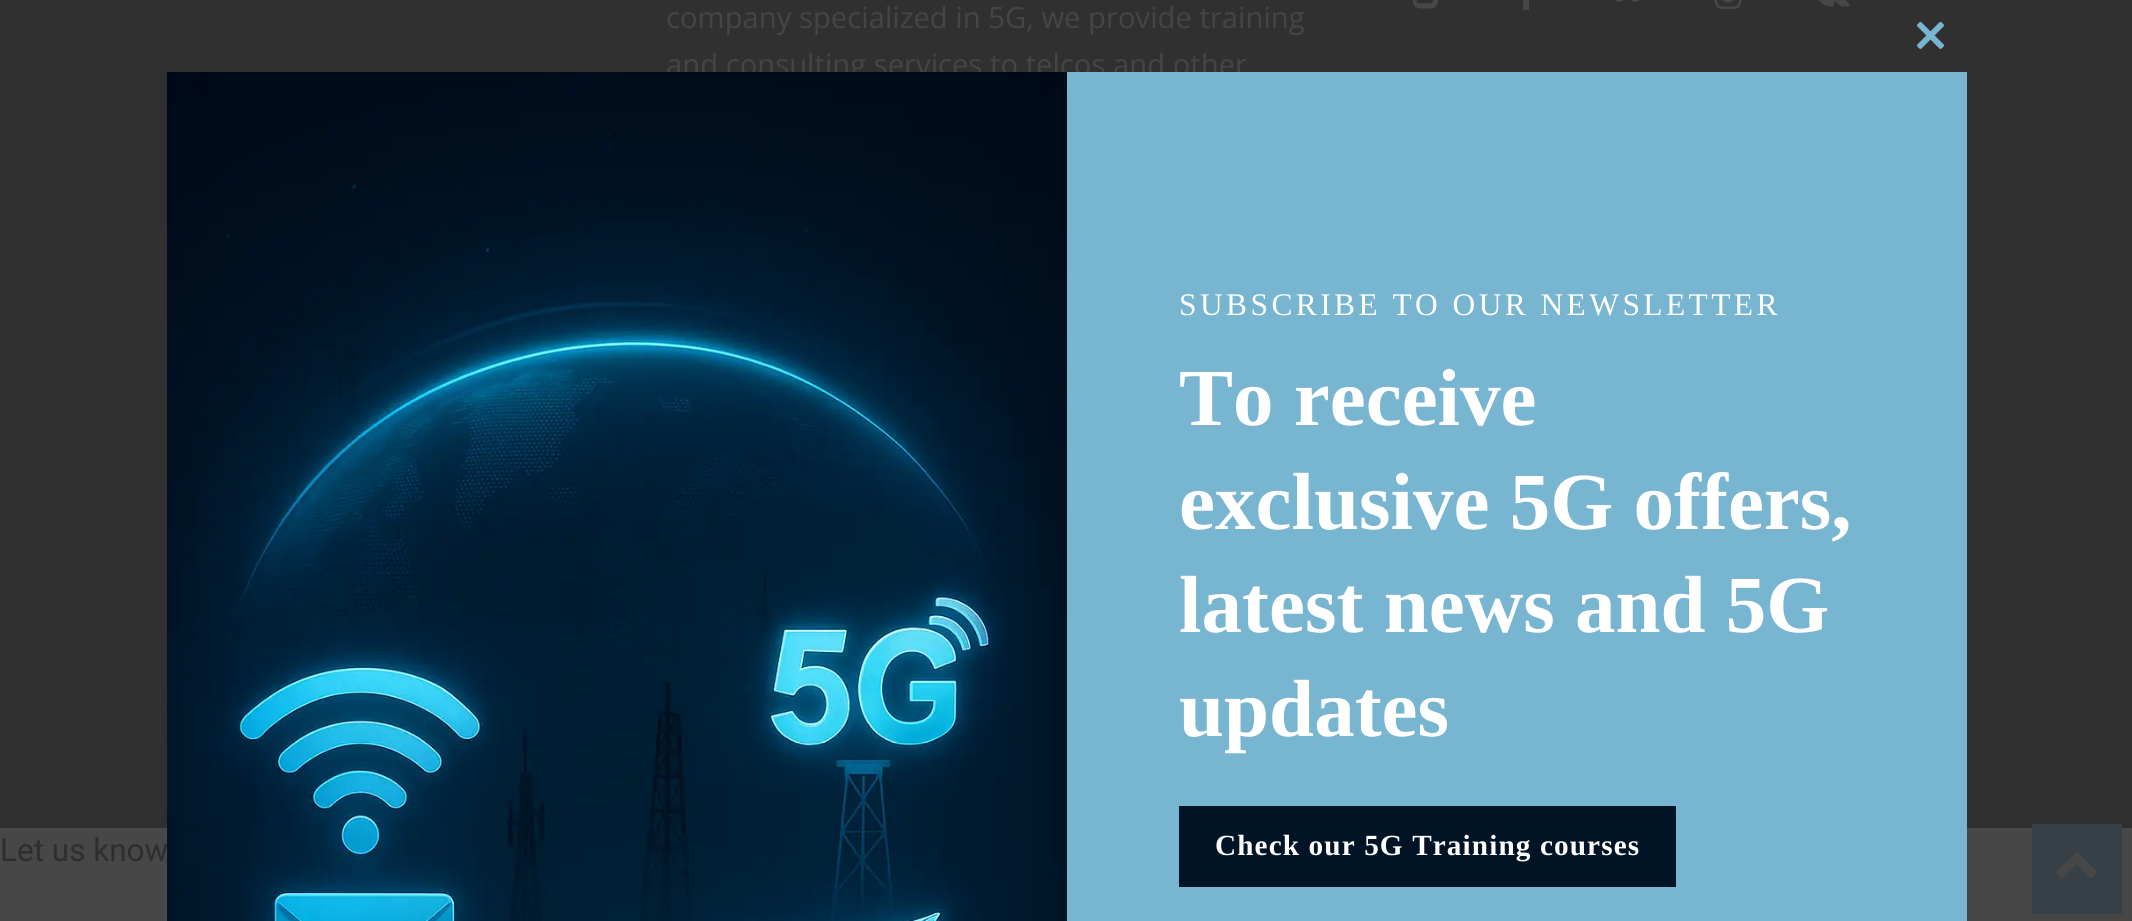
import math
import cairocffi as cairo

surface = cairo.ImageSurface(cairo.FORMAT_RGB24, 2132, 921)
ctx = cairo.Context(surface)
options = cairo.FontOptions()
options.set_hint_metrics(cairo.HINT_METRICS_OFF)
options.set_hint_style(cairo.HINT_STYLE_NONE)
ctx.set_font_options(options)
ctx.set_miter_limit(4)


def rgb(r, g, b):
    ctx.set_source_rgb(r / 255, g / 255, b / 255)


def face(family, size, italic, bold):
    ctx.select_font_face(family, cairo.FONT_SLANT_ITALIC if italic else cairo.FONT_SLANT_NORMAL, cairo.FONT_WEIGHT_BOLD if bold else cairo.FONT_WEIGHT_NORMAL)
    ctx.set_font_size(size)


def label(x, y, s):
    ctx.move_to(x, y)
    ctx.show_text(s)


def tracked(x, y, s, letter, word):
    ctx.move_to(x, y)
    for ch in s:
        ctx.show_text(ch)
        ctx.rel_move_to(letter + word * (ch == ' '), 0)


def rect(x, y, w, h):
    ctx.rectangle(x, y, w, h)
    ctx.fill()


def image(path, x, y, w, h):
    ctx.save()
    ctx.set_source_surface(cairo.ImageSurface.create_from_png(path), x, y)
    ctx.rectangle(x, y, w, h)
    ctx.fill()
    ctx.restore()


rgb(71, 71, 71)
ctx.paint()
rgb(48, 48, 48)
rect(0, 0, 2132, 740)
face('Open Sans', 29.25, 0, 0)
rgb(69, 69, 69)
label(666, 28, 'company specialized in 5G, we provide training')
label(666, 75, 'and consulting services to telcos and other')
image('image0.png', 1413, 0, 25, 9)
rgb(71, 71, 71)
rect(1523, 0, 6, 10)
image('image1.png', 1615, 0, 25, 2)
image('image2.png', 1714, 0, 28, 9)
image('image3.png', 1818, 0, 32, 7)
rgb(47, 47, 47)
rect(0, 740, 2132, 88)
face('Roboto', 31.5, 0, 0)
rgb(46, 46, 46)
label(0, 861, 'Let us know')
image('image4.png', 1917, 21, 27, 28)
image('image5.png', 167, 72, 900, 849)
rgb(120, 181, 209)
rect(1067, 72, 900, 849)
face('Liberation Serif', 31.5, 0, 0)
rgb(255, 255, 255)
tracked(1179, 315, 'SUBSCRIBE TO OUR NEWSLETTER', 3.4, 0)
face('Liberation Serif', 81, 0, 1)
label(1179, 425, 'To receive')
label(1179, 529, 'exclusive 5G offers,')
label(1179, 632, 'latest news and 5G')
label(1179, 736, 'updates')
rgb(0, 20, 38)
rect(1179, 806, 497, 81)
face('Liberation Serif', 29.25, 0, 1)
rgb(255, 255, 255)
tracked(1215, 855, 'Check our 5G Training courses', 1.1, 0)
rgb(54, 64, 70)
rect(2032, 824, 90, 90)
image('image6.png', 2056, 852, 41, 27)
surface.write_to_png('render.png')
